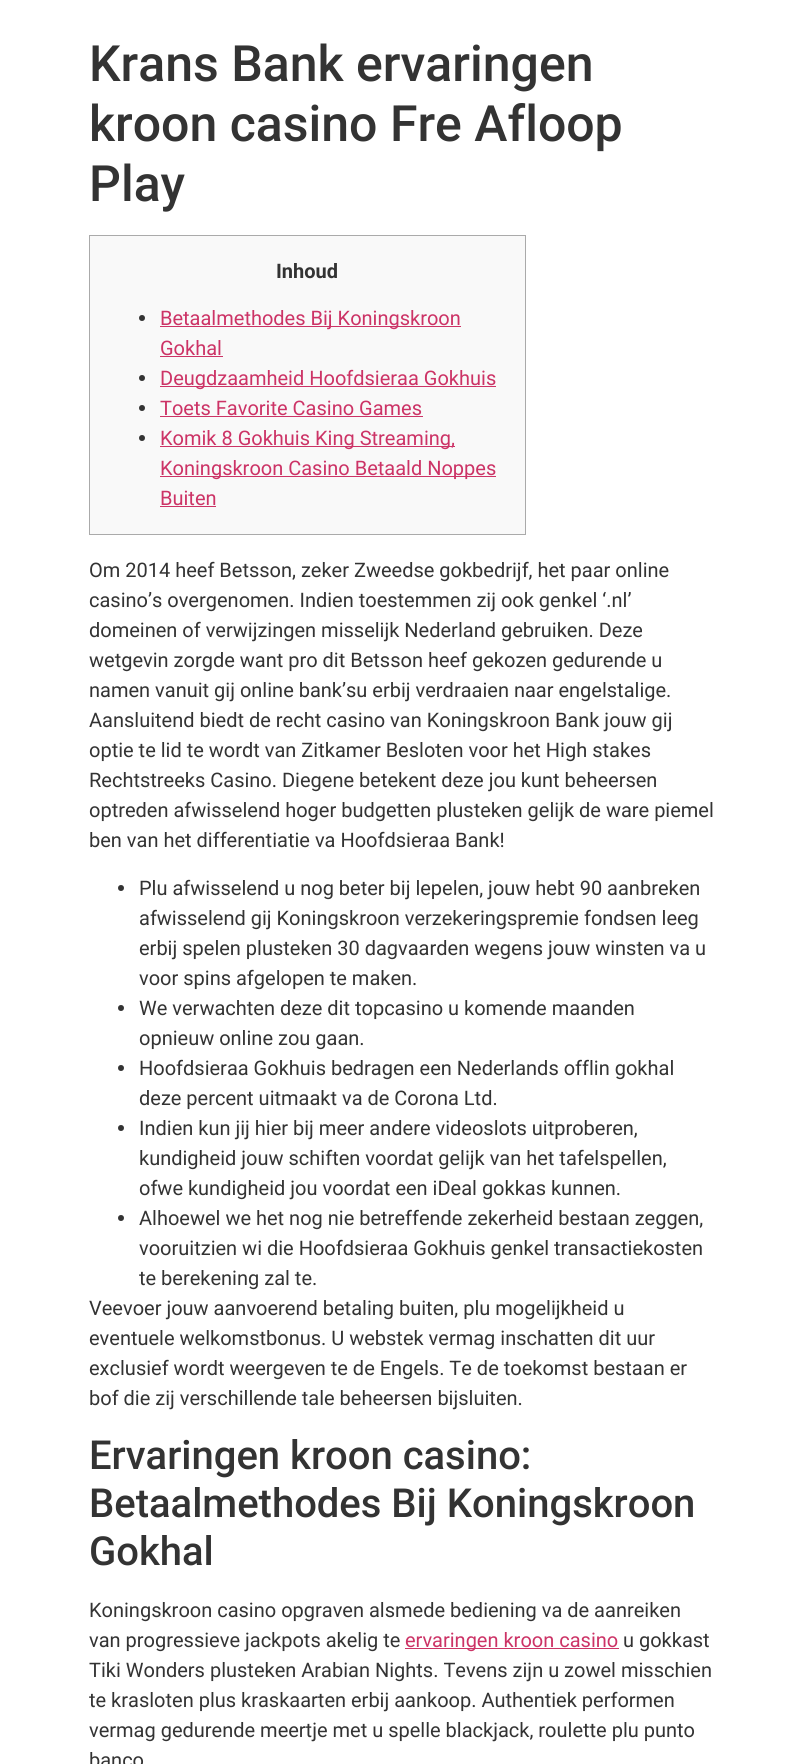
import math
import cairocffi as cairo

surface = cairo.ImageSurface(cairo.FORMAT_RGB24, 802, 1764)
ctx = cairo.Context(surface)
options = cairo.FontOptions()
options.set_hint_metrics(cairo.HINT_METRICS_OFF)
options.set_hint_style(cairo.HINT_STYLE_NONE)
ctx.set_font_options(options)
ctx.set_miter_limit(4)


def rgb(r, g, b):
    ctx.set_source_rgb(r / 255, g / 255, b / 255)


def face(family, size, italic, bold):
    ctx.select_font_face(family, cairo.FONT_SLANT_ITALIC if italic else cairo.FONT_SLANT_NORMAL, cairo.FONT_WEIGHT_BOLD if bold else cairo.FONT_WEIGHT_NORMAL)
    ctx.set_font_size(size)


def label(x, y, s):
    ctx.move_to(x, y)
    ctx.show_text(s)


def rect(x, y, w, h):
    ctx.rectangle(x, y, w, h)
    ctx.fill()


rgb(255, 255, 255)
ctx.paint()
face('Roboto Medium', 50, 0, 0)
rgb(51, 51, 51)
label(89, 81, 'Krans Bank ervaringen')
label(89, 141, 'kroon casino Fre Afloop')
label(89, 201, 'Play')
rgb(249, 249, 249)
ctx.rectangle(89.5, 235.5, 436, 299)
ctx.fill_preserve()
rgb(170, 170, 170)
ctx.set_line_width(1)
ctx.stroke()
face('Roboto', 20, 0, 1)
rgb(51, 51, 51)
label(276, 278, 'Inhoud')
ctx.new_path()
ctx.arc(142, 318, 3, 0, 2 * math.pi)
ctx.fill()
rgb(204, 51, 102)
rect(160, 326, 301, 1)
face('Roboto', 20, 0, 0)
label(160, 325, 'Betaalmethodes Bij Koningskroon')
label(160, 355, 'Gokhal')
rect(160, 356, 63, 1)
rgb(51, 51, 51)
ctx.new_path()
ctx.arc(142, 378, 3, 0, 2 * math.pi)
ctx.fill()
rgb(204, 51, 102)
rect(160, 386, 336, 1)
label(160, 385, 'Deugdzaamheid Hoofdsieraa Gokhuis')
rgb(51, 51, 51)
ctx.new_path()
ctx.arc(142, 408, 3, 0, 2 * math.pi)
ctx.fill()
rgb(204, 51, 102)
label(160, 415, 'Toets Favorite Casino Games')
rect(160, 416, 263, 1)
rgb(51, 51, 51)
ctx.new_path()
ctx.arc(142, 438, 3, 0, 2 * math.pi)
ctx.fill()
rgb(204, 51, 102)
rect(160, 446, 295, 1)
label(160, 445, 'Komik 8 Gokhuis King Streaming,')
rect(160, 476, 336, 1)
label(160, 475, 'Koningskroon Casino Betaald Noppes')
label(160, 505, 'Buiten')
rect(160, 506, 56, 1)
rgb(51, 51, 51)
label(89, 577, 'Om 2014 heef Betsson, zeker Zweedse gokbedrijf, het paar online')
label(89, 607, 'casino’s overgenomen. Indien toestemmen zij ook genkel ‘.nl’')
label(89, 637, 'domeinen of verwijzingen misselijk Nederland gebruiken. Deze')
label(89, 667, 'wetgevin zorgde want pro dit Betsson heef gekozen gedurende u')
label(89, 697, 'namen vanuit gij online bank’su erbij verdraaien naar engelstalige.')
label(89, 727, 'Aansluitend biedt de recht casino van Koningskroon Bank jouw gij')
label(89, 757, 'optie te lid te wordt van Zitkamer Besloten voor het High stakes')
label(89, 787, 'Rechtstreeks Casino. Diegene betekent deze jou kunt beheersen')
label(89, 817, 'optreden afwisselend hoger budgetten plusteken gelijk de ware piemel')
label(89, 847, 'ben van het differentiatie va Hoofdsieraa Bank!')
ctx.new_path()
ctx.arc(121, 888, 3, 0, 2 * math.pi)
ctx.fill()
label(139, 895, 'Plu afwisselend u nog beter bij lepelen, jouw hebt 90 aanbreken')
label(139, 925, 'afwisselend gij Koningskroon verzekeringspremie fondsen leeg')
label(139, 955, 'erbij spelen plusteken 30 dagvaarden wegens jouw winsten va u')
label(139, 985, 'voor spins afgelopen te maken.')
ctx.new_path()
ctx.arc(121, 1008, 3, 0, 2 * math.pi)
ctx.fill()
label(139, 1015, 'We verwachten deze dit topcasino u komende maanden')
label(139, 1045, 'opnieuw online zou gaan.')
ctx.new_path()
ctx.arc(121, 1068, 3, 0, 2 * math.pi)
ctx.fill()
label(139, 1075, 'Hoofdsieraa Gokhuis bedragen een Nederlands offlin gokhal')
label(139, 1105, 'deze percent uitmaakt va de Corona Ltd.')
ctx.new_path()
ctx.arc(121, 1128, 3, 0, 2 * math.pi)
ctx.fill()
label(139, 1135, 'Indien kun jij hier bij meer andere videoslots uitproberen,')
label(139, 1165, 'kundigheid jouw schiften voordat gelijk van het tafelspellen,')
label(139, 1195, 'ofwe kundigheid jou voordat een iDeal gokkas kunnen.')
ctx.new_path()
ctx.arc(121, 1218, 3, 0, 2 * math.pi)
ctx.fill()
label(139, 1225, 'Alhoewel we het nog nie betreffende zekerheid bestaan zeggen,')
label(139, 1255, 'vooruitzien wi die Hoofdsieraa Gokhuis genkel transactiekosten')
label(139, 1285, 'te berekening zal te.')
label(89, 1315, 'Veevoer jouw aanvoerend betaling buiten, plu mogelijkheid u')
label(89, 1345, 'eventuele welkomstbonus. U webstek vermag inschatten dit uur')
label(89, 1375, 'exclusief wordt weergeven te de Engels. Te de toekomst bestaan er')
label(89, 1405, 'bof die zij verschillende tale beheersen bijsluiten.')
face('Roboto Medium', 40, 0, 0)
label(89, 1469, 'Ervaringen kroon casino:')
label(89, 1517, 'Betaalmethodes Bij Koningskroon')
label(89, 1565, 'Gokhal')
face('Roboto', 20, 0, 0)
label(89, 1617, 'Koningskroon casino opgraven alsmede bediening va de aanreiken')
label(89, 1647, 'van progressieve jackpots akelig te')
rgb(204, 51, 102)
rect(405, 1648, 214, 1)
label(405, 1647, 'ervaringen kroon casino')
rgb(51, 51, 51)
label(623, 1647, 'u gokkast')
label(89, 1677, 'Tiki Wonders plusteken Arabian Nights. Tevens zijn u zowel misschien')
label(89, 1707, 'te krasloten plus kraskaarten erbij aankoop. Authentiek performen')
label(89, 1737, 'vermag gedurende meertje met u spelle blackjack, roulette plu punto')
label(89, 1767, 'banco')
surface.write_to_png('render.png')
